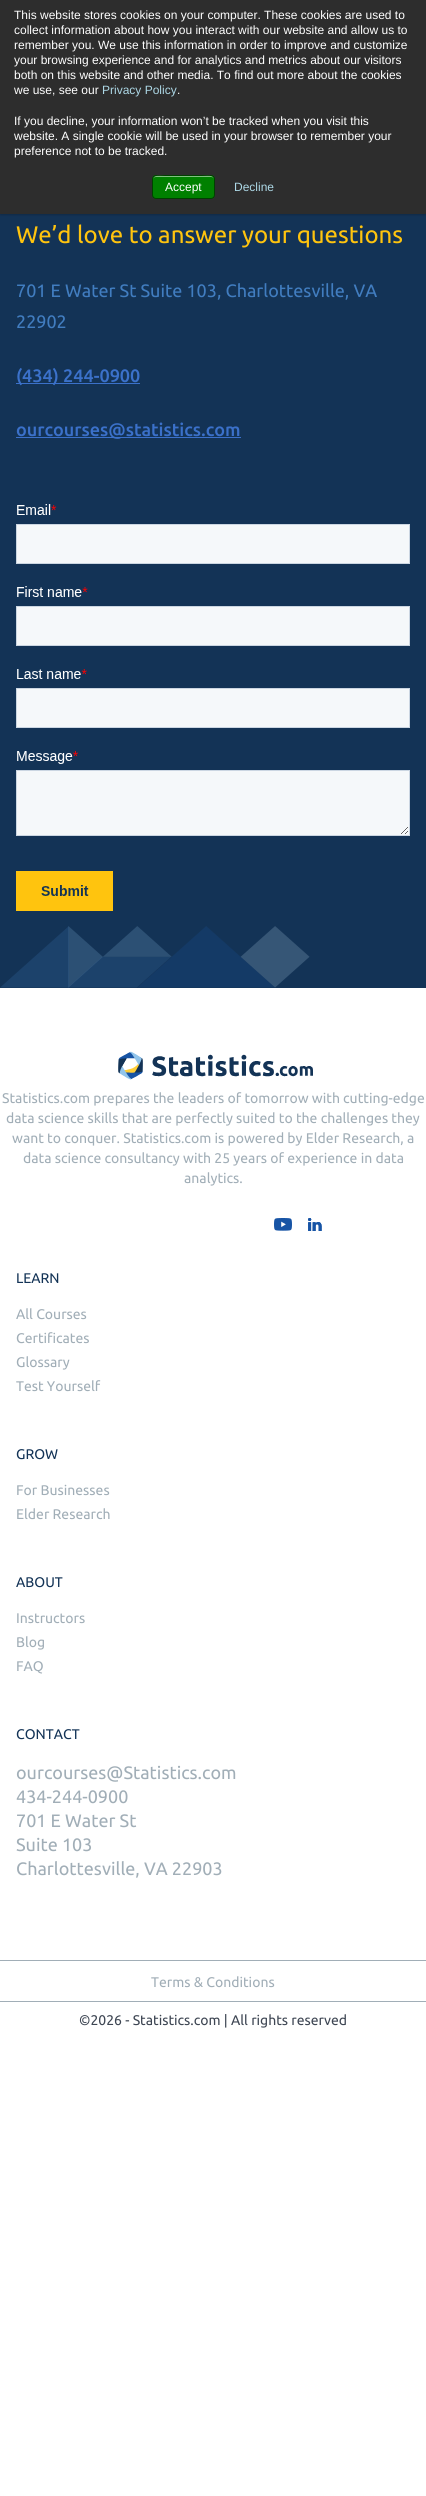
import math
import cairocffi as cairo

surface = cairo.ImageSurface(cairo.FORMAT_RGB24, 426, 2496)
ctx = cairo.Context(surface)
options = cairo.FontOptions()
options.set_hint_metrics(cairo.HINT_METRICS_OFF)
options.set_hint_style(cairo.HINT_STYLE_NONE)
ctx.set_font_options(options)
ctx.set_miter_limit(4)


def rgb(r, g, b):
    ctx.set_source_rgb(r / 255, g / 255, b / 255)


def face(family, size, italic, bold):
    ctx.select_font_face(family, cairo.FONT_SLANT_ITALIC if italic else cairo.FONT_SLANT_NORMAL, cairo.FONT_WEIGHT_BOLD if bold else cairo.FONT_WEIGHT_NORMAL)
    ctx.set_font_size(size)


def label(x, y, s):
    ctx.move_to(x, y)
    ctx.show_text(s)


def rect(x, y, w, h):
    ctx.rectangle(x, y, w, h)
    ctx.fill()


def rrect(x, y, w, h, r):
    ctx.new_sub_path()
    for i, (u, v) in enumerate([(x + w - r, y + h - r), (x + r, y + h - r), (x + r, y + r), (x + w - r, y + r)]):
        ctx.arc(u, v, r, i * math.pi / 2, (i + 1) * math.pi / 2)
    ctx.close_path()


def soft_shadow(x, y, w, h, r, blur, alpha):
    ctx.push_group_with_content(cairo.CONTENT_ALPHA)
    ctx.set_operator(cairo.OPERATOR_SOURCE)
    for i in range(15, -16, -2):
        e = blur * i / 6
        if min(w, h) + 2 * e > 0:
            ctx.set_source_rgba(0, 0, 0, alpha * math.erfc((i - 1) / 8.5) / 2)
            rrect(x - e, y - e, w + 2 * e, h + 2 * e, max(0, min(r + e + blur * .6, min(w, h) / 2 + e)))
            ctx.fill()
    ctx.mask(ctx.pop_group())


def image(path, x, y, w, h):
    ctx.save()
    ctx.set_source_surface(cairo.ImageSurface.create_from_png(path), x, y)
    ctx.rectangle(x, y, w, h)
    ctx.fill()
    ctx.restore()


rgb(255, 255, 255)
ctx.paint()
rgb(19, 51, 86)
rect(0, 214, 426, 774)
rgb(0, 0, 0)
soft_shadow(0, 1, 426, 214, 0, 1, 0.2)
rgb(45, 45, 45)
rect(0, 0, 426, 214)
face('Liberation Sans', 12, 0, 0)
rgb(255, 255, 255)
label(14, 19, 'This website stores cookies on your computer. These cookies are used to')
label(14, 34, 'collect information about how you interact with our website and allow us to')
label(14, 49, 'remember you. We use this information in order to improve and customize')
label(14, 64, 'your browsing experience and for analytics and metrics about our visitors')
label(14, 79, 'both on this website and other media. To find out more about the cookies')
label(14, 94, 'we use, see our')
rgb(173, 216, 230)
label(102, 94, 'Privacy Policy')
rgb(255, 255, 255)
label(177, 94, '.')
label(14, 125, 'If you decline, your information won’t be tracked when you visit this')
label(14, 140, 'website. A single cookie will be used in your browser to remember your')
label(14, 155, 'preference not to be tracked.')
rgb(0, 128, 0)
rrect(152, 175, 63, 24, 4)
ctx.fill()
rgb(128, 192, 128)
ctx.new_path()
ctx.move_to(156, 177)
ctx.line_to(211, 177)
ctx.curve_to(213, 177, 214, 178, 214, 180)
ctx.curve_to(214, 174, 206, 176, 202, 176)
ctx.line_to(165, 176)
ctx.curve_to(161, 176, 153, 174, 153, 180)
ctx.curve_to(153, 178, 154, 177, 156, 177)
ctx.close_path()
ctx.fill()
rrect(152.5, 175.5, 62, 23, 3.5)
ctx.set_source_rgba(0, 0, 0, 0.5)
ctx.set_line_width(1)
ctx.stroke()
rgb(255, 255, 255)
label(165, 191, 'Accept')
rgb(173, 216, 230)
label(234, 191, 'Decline')
image('image0.png', 0, 926, 310, 62)
face('Ubuntu', 24, 0, 0)
rgb(255, 196, 14)
label(16, 243, 'We’d love to answer your questions')
face('Ubuntu', 18, 0, 0)
rgb(65, 125, 192)
label(16, 297, '701 E Water St Suite 103, Charlottesville, VA')
label(16, 328, '22902')
rgb(59, 113, 202)
rect(16, 383, 124, 1)
face('Ubuntu Medium', 18, 0, 0)
label(16, 382, '(434) 244-0900')
rect(16, 437, 225, 1)
label(16, 436, 'ourcourses@statistics.com')
image('image1.png', 16, 504, 394, 407)
image('image2.png', 118, 1051, 195, 29)
face('Ubuntu', 14, 0, 0)
rgb(161, 174, 183)
label(2, 1103, 'Statistics.com prepares the leaders of tomorrow with cutting-edge')
label(6, 1123, 'data science skills that are perfectly suited to the challenges they')
label(12, 1143, 'want to conquer. Statistics.com is powered by Elder Research, a')
label(23, 1163, 'data science consultancy with 25 years of experience in data')
label(184, 1183, 'analytics.')
image('image3.png', 274, 1218, 18, 13)
image('image4.png', 308, 1218, 14, 13)
rgb(19, 51, 86)
label(16, 1283, 'LEARN')
rgb(161, 174, 183)
label(16, 1319, 'All Courses')
label(16, 1343, 'Certificates')
label(16, 1367, 'Glossary')
label(16, 1391, 'Test Yourself')
rgb(19, 51, 86)
label(16, 1459, 'GROW')
rgb(161, 174, 183)
label(16, 1495, 'For Businesses')
label(16, 1519, 'Elder Research')
rgb(19, 51, 86)
label(16, 1587, 'ABOUT')
rgb(161, 174, 183)
label(16, 1623, 'Instructors')
label(16, 1647, 'Blog')
label(16, 1671, 'FAQ')
rgb(19, 51, 86)
label(16, 1739, 'CONTACT')
face('Ubuntu', 18, 0, 0)
rgb(161, 174, 183)
label(16, 1779, 'ourcourses@Statistics.com')
label(16, 1803, '434-244-0900')
label(16, 1827, '701 E Water St')
label(16, 1851, 'Suite 103')
label(16, 1875, 'Charlottesville, VA 22903')
rect(0, 1960, 426, 1)
face('Ubuntu', 14, 0, 0)
label(151, 1987, 'Terms & Conditions')
rect(0, 2001, 426, 1)
rgb(62, 70, 83)
label(79, 2025, '©2026 - Statistics.com | All rights reserved')
surface.write_to_png('render.png')
